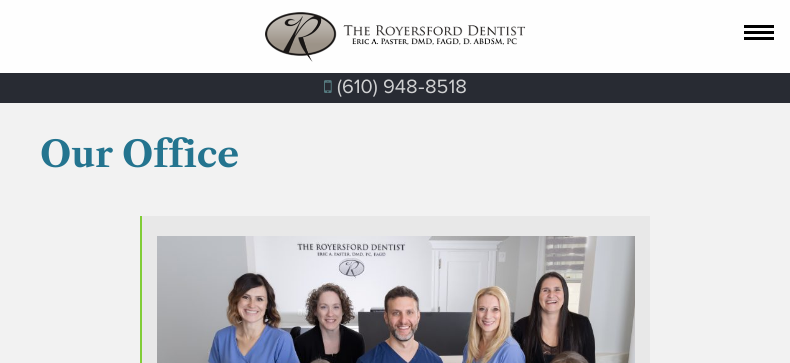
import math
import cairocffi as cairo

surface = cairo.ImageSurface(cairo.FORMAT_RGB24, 790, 363)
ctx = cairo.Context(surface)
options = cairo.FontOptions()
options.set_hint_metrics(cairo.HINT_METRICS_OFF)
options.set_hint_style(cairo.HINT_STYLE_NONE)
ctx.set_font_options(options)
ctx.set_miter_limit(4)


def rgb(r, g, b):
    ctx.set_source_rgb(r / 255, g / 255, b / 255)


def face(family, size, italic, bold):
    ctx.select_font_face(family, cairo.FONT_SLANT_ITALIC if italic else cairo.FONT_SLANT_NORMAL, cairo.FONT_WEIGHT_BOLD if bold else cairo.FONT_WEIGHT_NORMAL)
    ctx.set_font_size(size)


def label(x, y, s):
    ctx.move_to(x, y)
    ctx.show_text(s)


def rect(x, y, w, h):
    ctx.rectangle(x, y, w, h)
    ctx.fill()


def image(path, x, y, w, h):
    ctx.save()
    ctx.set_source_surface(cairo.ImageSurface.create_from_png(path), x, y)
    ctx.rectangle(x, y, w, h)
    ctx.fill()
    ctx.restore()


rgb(242, 242, 242)
ctx.paint()
rgb(254, 254, 254)
rect(0, 0, 790, 73)
image('image0.png', 265, 12, 261, 50)
rgb(0, 0, 0)
rect(744, 25, 30, 3)
rect(744, 31, 30, 3)
rect(744, 37, 30, 3)
rgb(40, 43, 51)
rect(0, 73, 790, 30)
image('image1.png', 324, 80, 8, 13)
face('Proxima Nova', 20, 0, 0)
rgb(208, 209, 210)
label(337, 93, '(610) 948')
face('Liberation Serif', 20, 0, 0)
label(418, 93, '‐')
face('Proxima Nova', 20, 0, 0)
label(425, 93, '8518')
face('Libre Caslon Text', 36, 0, 1)
rgb(36, 116, 143)
label(40, 167, 'Our Office')
rgb(232, 232, 232)
rect(142, 216, 508, 147)
rgb(128, 205, 54)
rect(140, 216, 2, 147)
image('image2.png', 157, 236, 478, 127)
surface.write_to_png('render.png')
